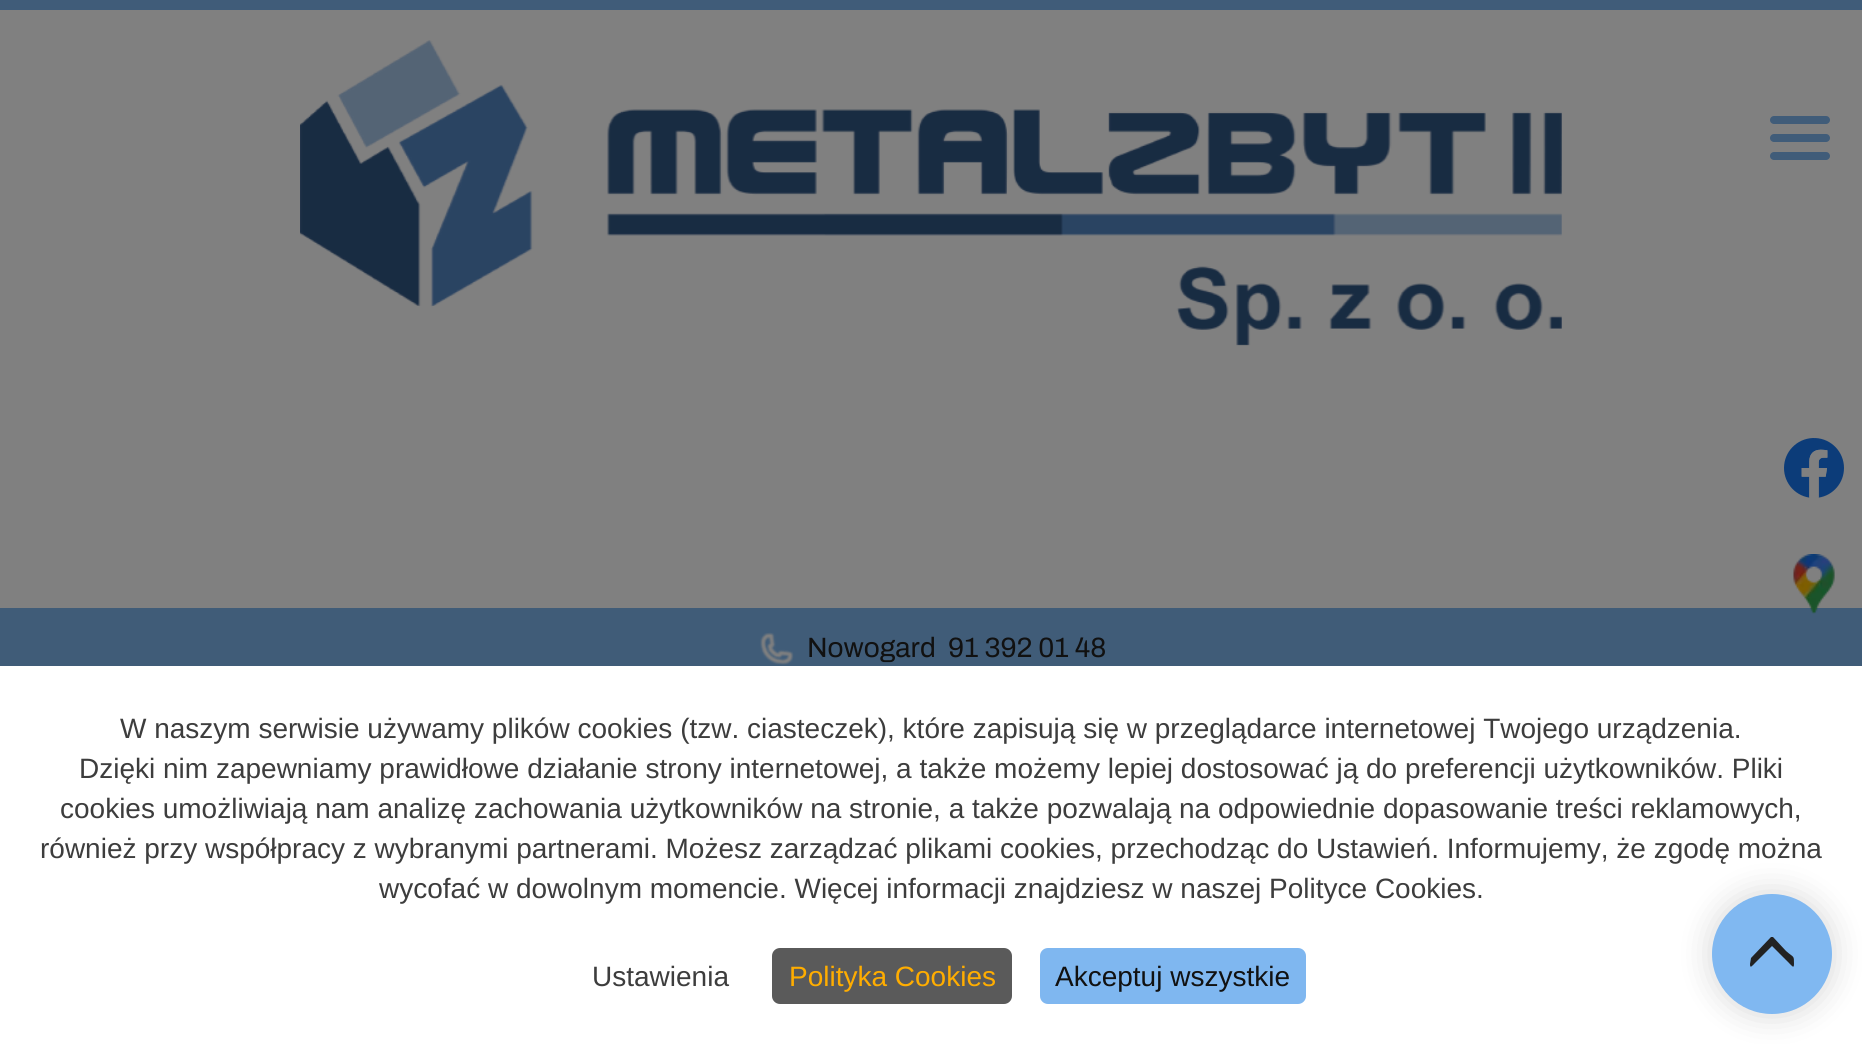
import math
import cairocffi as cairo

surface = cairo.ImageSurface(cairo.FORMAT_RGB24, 1862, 1044)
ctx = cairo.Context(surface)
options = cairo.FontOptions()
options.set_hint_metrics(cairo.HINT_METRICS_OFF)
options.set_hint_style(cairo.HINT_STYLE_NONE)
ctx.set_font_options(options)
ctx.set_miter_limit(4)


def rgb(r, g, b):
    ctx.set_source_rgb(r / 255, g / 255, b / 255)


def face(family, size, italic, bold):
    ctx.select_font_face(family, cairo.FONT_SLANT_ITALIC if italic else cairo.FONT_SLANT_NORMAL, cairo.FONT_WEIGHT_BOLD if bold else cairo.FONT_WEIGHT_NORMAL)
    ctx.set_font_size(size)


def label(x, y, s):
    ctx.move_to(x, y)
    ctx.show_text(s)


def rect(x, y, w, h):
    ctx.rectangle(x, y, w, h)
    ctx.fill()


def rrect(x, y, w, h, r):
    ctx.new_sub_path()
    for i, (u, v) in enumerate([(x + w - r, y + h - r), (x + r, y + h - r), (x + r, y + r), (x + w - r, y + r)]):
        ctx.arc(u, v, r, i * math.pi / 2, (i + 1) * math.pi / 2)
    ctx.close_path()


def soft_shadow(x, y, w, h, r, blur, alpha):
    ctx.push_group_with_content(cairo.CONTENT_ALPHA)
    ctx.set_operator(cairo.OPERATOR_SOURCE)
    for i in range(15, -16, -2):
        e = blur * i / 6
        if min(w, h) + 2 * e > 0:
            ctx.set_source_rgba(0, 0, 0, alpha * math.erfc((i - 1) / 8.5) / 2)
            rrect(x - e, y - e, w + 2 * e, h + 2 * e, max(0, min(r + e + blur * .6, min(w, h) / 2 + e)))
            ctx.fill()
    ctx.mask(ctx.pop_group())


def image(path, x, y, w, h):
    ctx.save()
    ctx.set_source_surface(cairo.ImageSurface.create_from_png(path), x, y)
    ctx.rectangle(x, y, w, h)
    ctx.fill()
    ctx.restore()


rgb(128, 128, 128)
ctx.paint()
rgb(64, 92, 121)
rect(0, 0, 1862, 10)
image('image0.png', 300, 40, 1262, 306)
rrect(1770, 116, 60, 8, 4)
ctx.fill()
rrect(1770, 134, 60, 8, 4)
ctx.fill()
rrect(1770, 152, 60, 8, 4)
ctx.fill()
rgb(64, 92, 120)
rect(0, 608, 1862, 58)
image('image1.png', 760, 632, 34, 33)
face('Archivo', 28, 0, 0)
rgb(17, 17, 17)
label(807, 657, 'Nowogard')
label(948, 657, '91 392 01 48')
image('image2.png', 1784, 438, 60, 60)
image('image3.png', 1793, 554, 42, 60)
rgb(255, 255, 255)
rect(0, 666, 1862, 378)
rgb(0, 0, 0)
soft_shadow(1710, 892, 124, 124, 62, 16, 0.15)
rgb(128, 184, 241)
ctx.arc(1772, 954, 60, 0, 2 * math.pi)
ctx.fill()
rgb(34, 34, 34)
ctx.new_path()
ctx.move_to(1773, 937)
ctx.line_to(1786, 951)
ctx.curve_to(1794, 958, 1794, 955, 1794, 964)
ctx.curve_to(1794, 969, 1792, 966, 1789, 963)
ctx.line_to(1772, 946)
ctx.line_to(1755, 963)
ctx.curve_to(1752, 966, 1750, 969, 1750, 964)
ctx.line_to(1751, 958)
ctx.line_to(1771, 937)
ctx.close_path()
ctx.fill()
face('Liberation Sans', 28, 0, 0)
rgb(61, 61, 61)
label(120, 738, 'W naszym serwisie używamy plików cookies (tzw. ciasteczek), które zapisują się w przeglądarce internetowej Twojego urządzenia.')
label(79, 778, 'Dzięki nim zapewniamy prawidłowe działanie strony internetowej, a także możemy lepiej dostosować ją do preferencji użytkowników. Pliki')
label(60, 818, 'cookies umożliwiają nam analizę zachowania użytkowników na stronie, a także pozwalają na odpowiednie dopasowanie treści reklamowych,')
label(40, 858, 'również przy współpracy z wybranymi partnerami. Możesz zarządzać plikami cookies, przechodząc do Ustawień. Informujemy, że zgodę można')
label(379, 898, 'wycofać w dowolnym momencie. Więcej informacji znajdziesz w naszej Polityce Cookies.')
label(592, 986, 'Ustawienia')
rgb(90, 90, 90)
rrect(772, 948, 240, 56, 8)
ctx.fill()
rgb(255, 173, 0)
label(789, 986, 'Polityka Cookies')
rgb(127, 183, 240)
rrect(1040, 948, 266, 56, 8)
ctx.fill()
rgb(17, 17, 17)
label(1055, 986, 'Akceptuj wszystkie')
surface.write_to_png('render.png')
